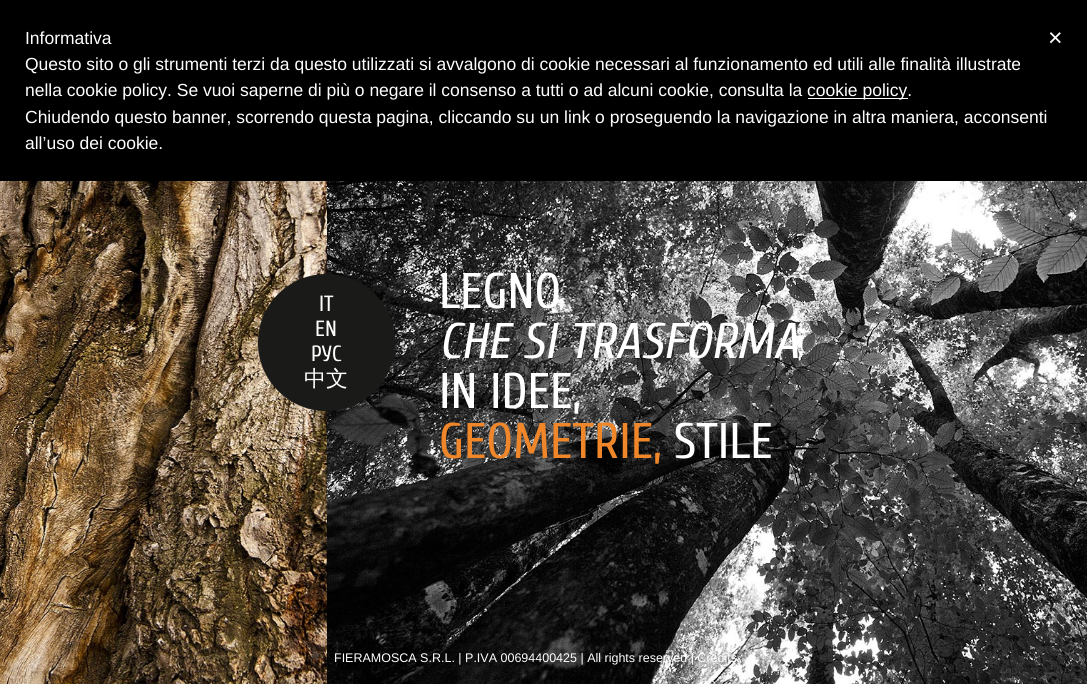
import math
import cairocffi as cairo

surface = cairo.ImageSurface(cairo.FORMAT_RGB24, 1087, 684)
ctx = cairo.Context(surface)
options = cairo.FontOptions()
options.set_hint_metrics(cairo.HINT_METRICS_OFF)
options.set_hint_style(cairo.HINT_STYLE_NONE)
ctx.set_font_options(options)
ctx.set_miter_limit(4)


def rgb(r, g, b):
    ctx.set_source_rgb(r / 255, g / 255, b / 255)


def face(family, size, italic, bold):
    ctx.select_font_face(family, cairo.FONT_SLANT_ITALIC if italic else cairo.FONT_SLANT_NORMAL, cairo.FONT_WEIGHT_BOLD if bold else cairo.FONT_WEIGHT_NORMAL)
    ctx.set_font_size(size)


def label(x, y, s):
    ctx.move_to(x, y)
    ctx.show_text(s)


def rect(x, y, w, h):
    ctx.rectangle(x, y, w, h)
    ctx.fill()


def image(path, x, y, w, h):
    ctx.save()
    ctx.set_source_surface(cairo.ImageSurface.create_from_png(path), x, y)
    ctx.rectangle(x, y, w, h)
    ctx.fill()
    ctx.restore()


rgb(255, 255, 255)
ctx.paint()
rgb(0, 0, 0)
rect(0, 0, 1087, 181)
face('Liberation Sans', 17.5, 0, 0)
rgb(255, 255, 255)
label(25, 44, 'Informativa')
label(25, 70, 'Questo sito o gli strumenti terzi da questo utilizzati si avvalgono di cookie necessari al funzionamento ed utili alle finalità illustrate')
label(25, 96, 'nella cookie policy. Se vuoi saperne di più o negare il consenso a tutti o ad alcuni cookie, consulta la')
rect(808, 98, 100, 1)
label(807, 96, 'cookie policy.')
label(25, 123, 'Chiudendo questo banner, scorrendo questa pagina, cliccando su un link o proseguendo la navigazione in altra maniera, acconsenti')
label(25, 149, 'all’uso dei cookie.')
face('Liberation Sans', 25, 0, 0)
label(1048, 46, '×')
image('image0.png', 0, 181, 327, 503)
image('image1.png', 327, 181, 760, 503)
rgb(26, 26, 24)
ctx.arc(326.5, 342.5, 68.5, 0, 2 * math.pi)
ctx.fill()
face('Cuprum', 22, 0, 0)
rgb(255, 255, 255)
label(319, 311, 'IT')
label(315, 336, 'EN')
label(311, 361, 'РУС')
face('WenQuanYi Zen Hei Medium', 22, 0, 0)
label(304, 386, '中文')
face('Cuprum', 50, 0, 0)
label(439, 308, 'LEGNO')
face('Cuprum', 50, 1, 0)
label(439, 358, 'CHE SI TRASFORMA')
face('Cuprum', 50, 0, 0)
label(439, 408, 'IN IDEE,')
rgb(239, 135, 42)
label(439, 458, 'GEOMETRIE,')
rgb(255, 255, 255)
label(674, 458, 'STILE')
face('Liberation Sans', 12.5, 0, 0)
label(334, 662, 'FIERAMOSCA S.R.L. | P.IVA 00694400425 | All rights reserved | Credits')
surface.write_to_png('render.png')
